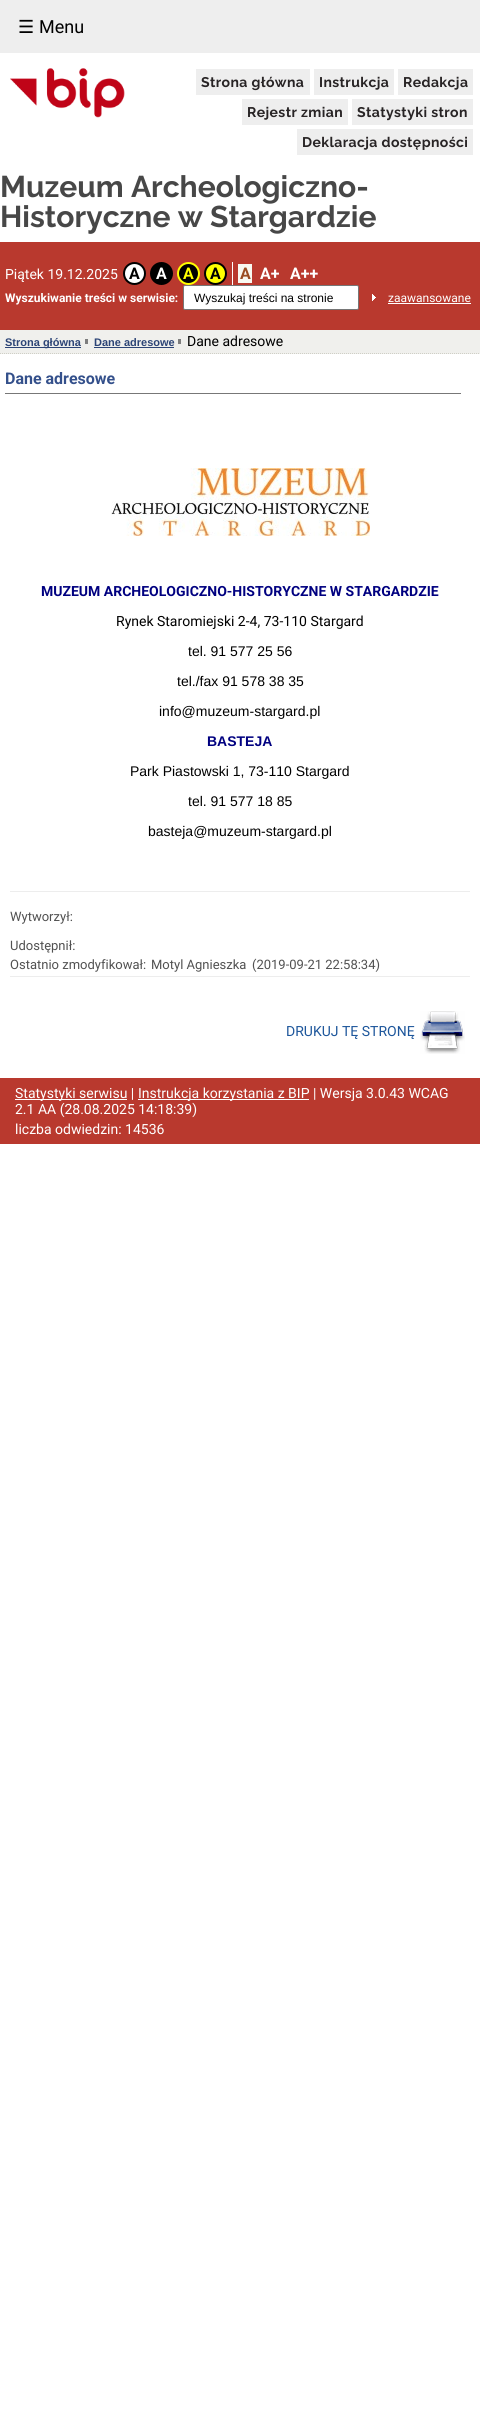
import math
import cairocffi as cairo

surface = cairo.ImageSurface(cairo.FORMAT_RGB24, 480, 2417)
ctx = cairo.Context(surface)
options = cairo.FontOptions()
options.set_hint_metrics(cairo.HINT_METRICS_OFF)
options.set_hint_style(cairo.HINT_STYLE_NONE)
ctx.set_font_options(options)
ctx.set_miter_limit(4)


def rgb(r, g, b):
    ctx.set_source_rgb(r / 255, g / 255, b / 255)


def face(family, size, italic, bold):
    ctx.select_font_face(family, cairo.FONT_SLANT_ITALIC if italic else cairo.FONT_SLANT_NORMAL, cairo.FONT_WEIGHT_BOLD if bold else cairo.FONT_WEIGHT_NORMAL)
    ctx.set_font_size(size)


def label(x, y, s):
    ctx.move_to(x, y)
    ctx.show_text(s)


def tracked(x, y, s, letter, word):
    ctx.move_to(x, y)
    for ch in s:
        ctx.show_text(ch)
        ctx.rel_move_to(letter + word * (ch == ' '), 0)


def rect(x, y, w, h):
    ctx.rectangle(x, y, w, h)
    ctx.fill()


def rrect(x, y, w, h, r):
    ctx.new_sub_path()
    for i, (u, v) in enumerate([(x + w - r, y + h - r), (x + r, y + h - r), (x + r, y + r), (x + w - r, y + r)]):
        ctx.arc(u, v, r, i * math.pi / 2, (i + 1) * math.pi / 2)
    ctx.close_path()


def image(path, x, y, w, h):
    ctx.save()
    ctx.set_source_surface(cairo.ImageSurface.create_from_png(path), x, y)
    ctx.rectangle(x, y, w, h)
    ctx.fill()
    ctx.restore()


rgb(255, 255, 255)
ctx.paint()
rgb(238, 238, 238)
rect(0, 0, 480, 53)
face('DejaVu Sans', 18, 0, 0)
rgb(0, 0, 0)
label(18, 33, '☰')
face('Roboto', 18, 0, 0)
label(39, 33, 'Menu')
image('image0.png', 10, 68, 115, 50)
rgb(238, 238, 238)
rect(196, 69, 114, 26)
face('Raleway', 14, 0, 1)
rgb(40, 36, 37)
tracked(201, 87, 'Strona główna', 0.4, 0)
rgb(238, 238, 238)
rect(314, 69, 80, 26)
rgb(40, 36, 37)
tracked(319, 87, 'Instrukcja', 0.4, 0)
rgb(238, 238, 238)
rect(398, 69, 75, 26)
rgb(40, 36, 37)
tracked(403, 87, 'Redakcja', 0.4, 0)
rgb(238, 238, 238)
rect(242, 99, 106, 26)
rgb(40, 36, 37)
tracked(247, 117, 'Rejestr zmian', 0.4, 0)
rgb(238, 238, 238)
rect(352, 99, 121, 26)
rgb(40, 36, 37)
tracked(357, 117, 'Statystyki stron', 0.4, 0)
rgb(238, 238, 238)
rect(297, 129, 176, 26)
rgb(40, 36, 37)
tracked(302, 147, 'Deklaracja dostępności', 0.4, 0)
face('Raleway', 30, 0, 1)
rgb(71, 71, 71)
label(0, 197, 'Muzeum Archeologiczno-')
label(0, 227, 'Historyczne w Stargardzie')
rgb(185, 57, 46)
rect(0, 242, 480, 88)
face('Roboto', 14, 0, 0)
rgb(255, 255, 255)
label(5, 279, 'Piątek 19.12.2025')
rect(232, 262, 1, 23)
ctx.new_path()
ctx.arc(134.5, 273.5, 10.5, 0, 2 * math.pi)
ctx.fill_preserve()
rgb(0, 0, 0)
ctx.stroke()
face('Roboto', 16, 0, 1)
label(129, 279, 'A')
ctx.new_path()
ctx.arc(161.5, 273.5, 10.5, 0, 2 * math.pi)
ctx.fill_preserve()
ctx.stroke()
rgb(255, 255, 255)
label(156, 279, 'A')
rgb(0, 0, 0)
ctx.new_path()
ctx.arc(188.5, 273.5, 10.5, 0, 2 * math.pi)
ctx.fill_preserve()
rgb(255, 255, 0)
ctx.stroke()
label(183, 279, 'A')
ctx.new_path()
ctx.arc(215.5, 273.5, 10.5, 0, 2 * math.pi)
ctx.fill_preserve()
rgb(0, 0, 0)
ctx.stroke()
label(210, 279, 'A')
rgb(248, 249, 241)
rect(238, 264, 14, 19)
rgb(154, 77, 34)
label(240, 279, 'A')
rgb(255, 255, 255)
label(260, 279, 'A+')
label(290, 279, 'A++')
face('Roboto', 12, 0, 1)
label(5, 302, 'Wyszukiwanie treści w serwisie:')
rrect(183.5, 285.5, 175, 24, 1.5)
ctx.fill_preserve()
rgb(118, 118, 118)
ctx.set_line_width(1)
ctx.stroke()
face('Liberation Sans', 12, 0, 0)
rgb(0, 0, 0)
label(194, 302, 'Wyszukaj treści na stronie')
image('image1.png', 372, 294, 4, 7)
face('Roboto', 12, 0, 0)
rgb(255, 255, 255)
label(388, 302, 'zaawansowane')
rect(388, 303, 83, 1)
rgb(240, 240, 237)
rect(0, 330, 480, 24)
ctx.new_path()
ctx.move_to(0, 353.5)
ctx.line_to(480, 353.5)
rgb(207, 207, 198)
ctx.set_dash([1, 1])
ctx.stroke()
rgb(44, 68, 118)
rect(5, 347, 76, 1)
face('Liberation Sans', 11, 0, 1)
label(5, 346, 'Strona główna')
rgb(126, 126, 126)
rect(85, 339, 3, 5)
rgb(44, 68, 118)
label(94, 346, 'Dane adresowe')
rect(94, 347, 80, 1)
rgb(126, 126, 126)
rect(178, 339, 3, 5)
face('Roboto', 14, 0, 0)
rgb(0, 0, 0)
label(187, 346, 'Dane adresowe')
rgb(119, 119, 119)
rect(5, 393, 456, 1)
face('Roboto', 16, 0, 1)
rgb(52, 80, 139)
label(5, 384, 'Dane adresowe')
image('image2.png', 111, 468, 259, 68)
face('Roboto', 14, 0, 1)
rgb(0, 0, 128)
label(41, 596, 'MUZEUM ARCHEOLOGICZNO-HISTORYCZNE W STARGARDZIE')
face('Roboto', 14, 0, 0)
rgb(0, 0, 0)
label(116, 626, 'Rynek Staromiejski 2-4, 73-110 Stargard')
face('Liberation Sans', 14, 0, 0)
label(188, 656, 'tel. 91 577 25 56')
label(177, 686, 'tel./fax 91 578 38 35')
label(159, 716, 'info@muzeum-stargard.pl')
face('Liberation Sans', 14, 0, 1)
rgb(0, 0, 128)
label(207, 746, 'BASTEJA')
face('Liberation Sans', 14, 0, 0)
rgb(0, 0, 0)
label(130, 776, 'Park Piastowski 1, 73-110 Stargard')
label(188, 806, 'tel. 91 577 18 85')
label(148, 836, 'basteja@muzeum-stargard.pl')
rgb(237, 237, 237)
rect(10, 891, 460, 1)
face('Roboto', 13, 0, 0)
rgb(81, 81, 81)
label(10, 921, 'Wytworzył:')
label(10, 950, 'Udostępnił:')
label(10, 969, 'Ostatnio zmodyfikował:')
label(151, 969, 'Motyl Agnieszka')
label(252, 969, '(2019-09-21 22:58:34)')
rgb(237, 237, 237)
rect(10, 976, 460, 1)
face('Roboto', 14, 0, 0)
rgb(29, 86, 155)
label(286, 1036, 'DRUKUJ TĘ STRONĘ')
image('image3.png', 420, 1011, 45, 43)
rgb(185, 57, 46)
rect(0, 1078, 480, 66)
rgb(255, 255, 255)
rect(15, 1099, 112, 1)
label(15, 1098, 'Statystyki serwisu |')
rect(138, 1099, 171, 1)
label(138, 1098, 'Instrukcja korzystania z BIP | Wersja 3.0.43 WCAG')
label(15, 1114, '2.1 AA (28.08.2025 14:18:39)')
label(15, 1134, 'liczba odwiedzin: 14536')
surface.write_to_png('render.png')
